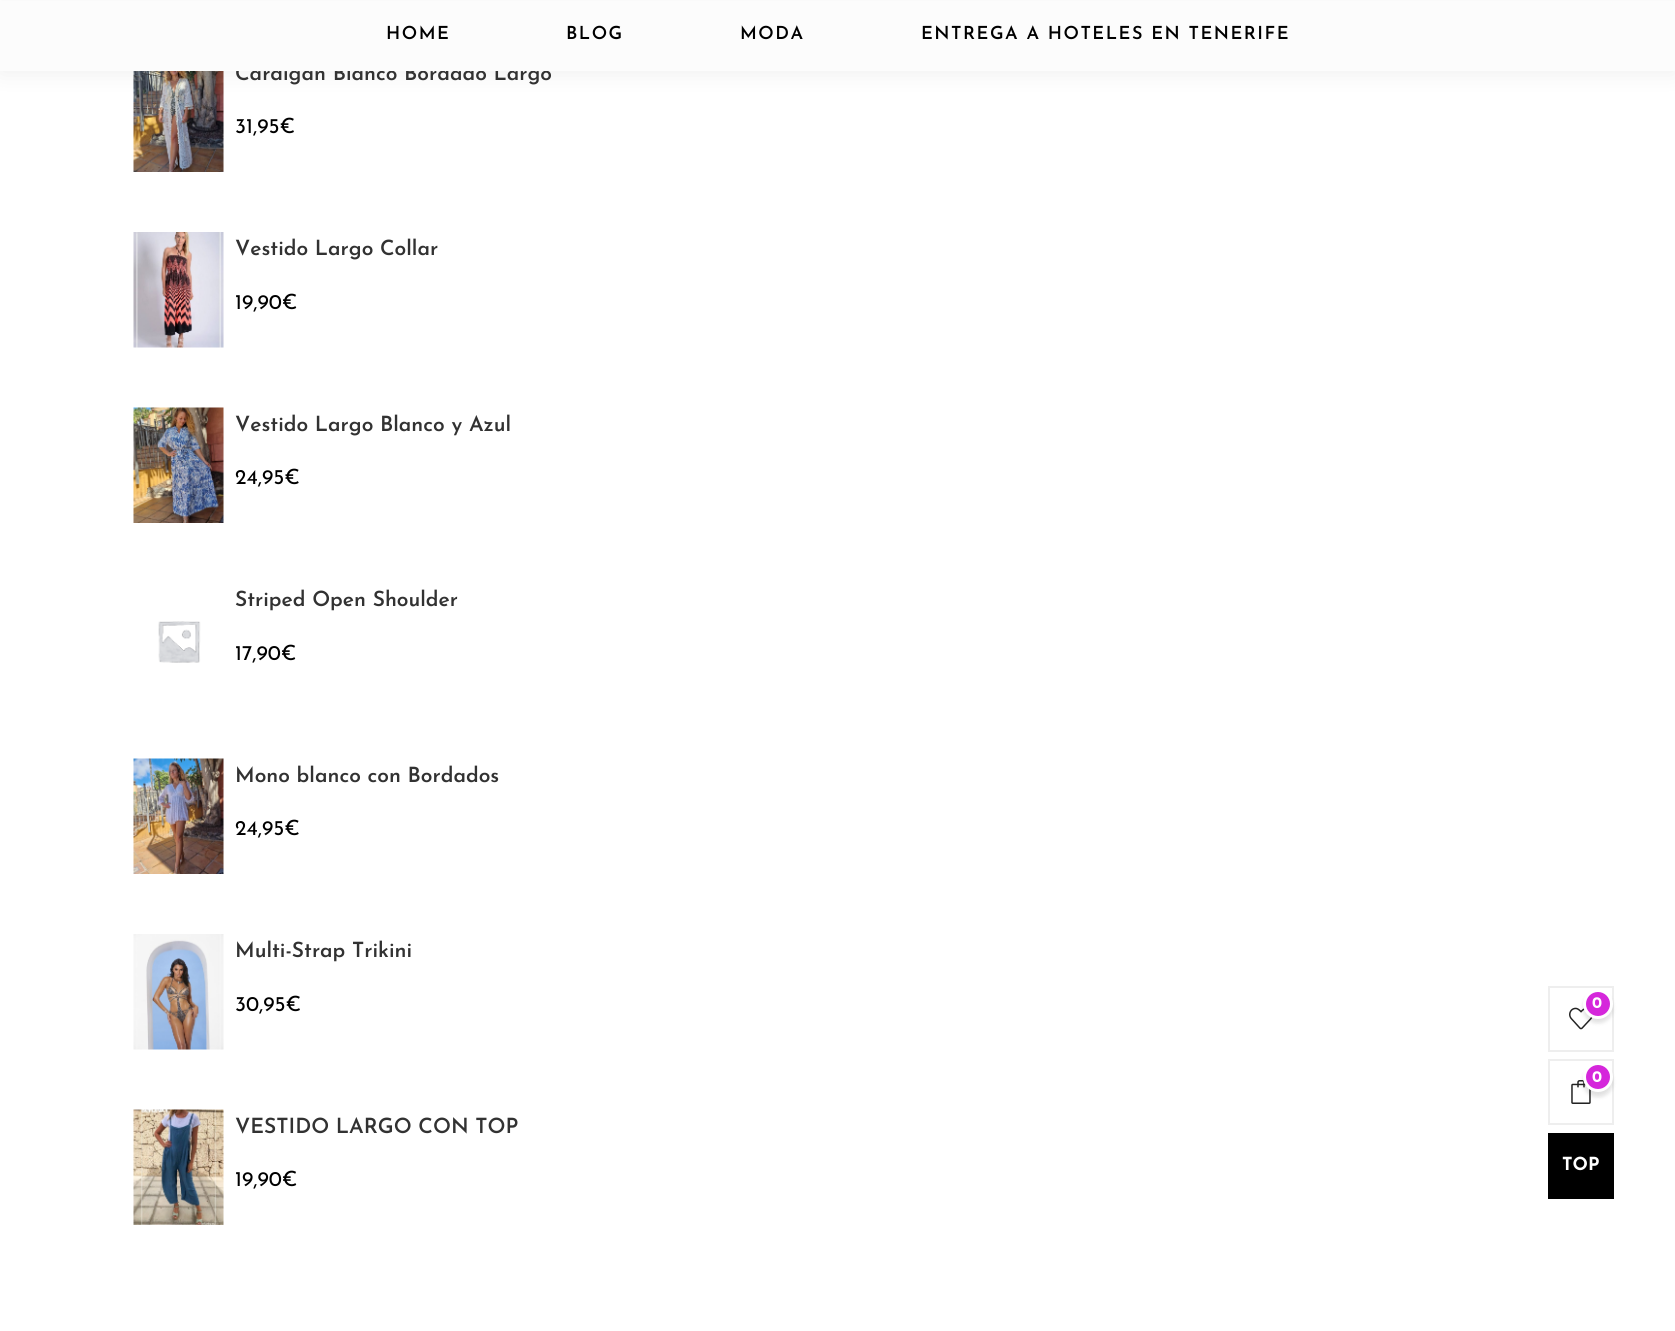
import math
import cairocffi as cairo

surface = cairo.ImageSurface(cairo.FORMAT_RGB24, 1675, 1331)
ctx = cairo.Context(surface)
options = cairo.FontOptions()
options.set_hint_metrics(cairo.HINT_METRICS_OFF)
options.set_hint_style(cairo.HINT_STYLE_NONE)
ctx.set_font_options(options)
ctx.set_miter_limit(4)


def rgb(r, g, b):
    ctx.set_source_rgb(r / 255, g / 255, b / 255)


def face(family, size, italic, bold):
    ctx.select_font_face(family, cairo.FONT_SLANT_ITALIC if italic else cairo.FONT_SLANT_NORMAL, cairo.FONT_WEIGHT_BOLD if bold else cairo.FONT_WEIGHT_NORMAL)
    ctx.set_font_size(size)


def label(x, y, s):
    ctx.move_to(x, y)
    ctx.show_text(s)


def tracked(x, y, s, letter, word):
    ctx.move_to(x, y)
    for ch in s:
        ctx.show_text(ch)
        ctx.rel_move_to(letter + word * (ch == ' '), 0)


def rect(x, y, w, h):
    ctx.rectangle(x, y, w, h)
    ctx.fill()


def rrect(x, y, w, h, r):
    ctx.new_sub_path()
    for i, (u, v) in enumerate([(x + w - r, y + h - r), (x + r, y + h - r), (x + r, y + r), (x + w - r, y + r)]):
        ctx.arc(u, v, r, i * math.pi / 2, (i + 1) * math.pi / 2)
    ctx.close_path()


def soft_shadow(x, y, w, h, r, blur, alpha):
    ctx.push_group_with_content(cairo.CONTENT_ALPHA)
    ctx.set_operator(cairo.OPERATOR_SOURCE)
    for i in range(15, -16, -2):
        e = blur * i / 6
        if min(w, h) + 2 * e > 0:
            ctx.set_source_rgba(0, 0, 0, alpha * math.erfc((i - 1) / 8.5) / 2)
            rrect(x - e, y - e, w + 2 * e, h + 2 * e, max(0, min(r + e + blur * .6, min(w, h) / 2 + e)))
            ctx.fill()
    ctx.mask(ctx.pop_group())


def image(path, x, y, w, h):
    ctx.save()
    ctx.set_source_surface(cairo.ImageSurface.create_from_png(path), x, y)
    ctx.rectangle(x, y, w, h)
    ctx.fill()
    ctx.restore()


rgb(255, 255, 255)
ctx.paint()
image('image0.png', 133, 71, 91, 101)
rgb(0, 0, 0)
soft_shadow(0, 5, 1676, 70, 0, 11, 0.06)
face('Josefin Sans SemiBold', 21, 0, 0)
rgb(50, 50, 50)
label(235, 80, 'Cardigan Blanco Bordado Largo')
rgb(252, 252, 252)
rect(0, 1, 1675, 70)
face('Josefin Sans SemiBold', 18, 0, 0)
rgb(0, 0, 0)
tracked(386, 39, 'HOME', 1.5, 0)
tracked(566, 39, 'BLOG', 1.5, 0)
tracked(740, 39, 'MODA', 1.5, 0)
tracked(921, 39, 'ENTREGA A HOTELES EN TENERIFE', 1.5, 0)
face('Josefin Sans', 21, 0, 0)
label(235, 133, '31,95€')
image('image1.png', 133, 232, 91, 116)
face('Josefin Sans SemiBold', 21, 0, 0)
rgb(50, 50, 50)
label(235, 255, 'Vestido Largo Collar')
face('Josefin Sans', 21, 0, 0)
rgb(0, 0, 0)
label(235, 309, '19,90€')
image('image2.png', 133, 407, 91, 116)
face('Josefin Sans SemiBold', 21, 0, 0)
rgb(50, 50, 50)
label(235, 431, 'Vestido Largo Blanco y Azul')
face('Josefin Sans', 21, 0, 0)
rgb(0, 0, 0)
label(235, 484, '24,95€')
face('Josefin Sans SemiBold', 21, 0, 0)
rgb(50, 50, 50)
label(235, 606, 'Striped Open Shoulder')
image('image3.png', 158, 621, 43, 42)
face('Josefin Sans', 21, 0, 0)
rgb(0, 0, 0)
label(235, 660, '17,90€')
image('image4.png', 133, 758, 91, 116)
face('Josefin Sans SemiBold', 21, 0, 0)
rgb(50, 50, 50)
label(235, 782, 'Mono blanco con Bordados')
face('Josefin Sans', 21, 0, 0)
rgb(0, 0, 0)
label(235, 835, '24,95€')
image('image5.png', 133, 934, 91, 116)
face('Josefin Sans SemiBold', 21, 0, 0)
rgb(50, 50, 50)
label(235, 957, 'Multi-Strap Trikini')
face('Josefin Sans', 21, 0, 0)
rgb(0, 0, 0)
label(235, 1011, '30,95€')
image('image6.png', 133, 1109, 91, 116)
face('Josefin Sans SemiBold', 21, 0, 0)
rgb(50, 50, 50)
label(235, 1133, 'VESTIDO LARGO CON TOP')
face('Josefin Sans', 21, 0, 0)
rgb(0, 0, 0)
label(235, 1186, '19,90€')
ctx.rectangle(1549, 987, 64, 64)
rgb(238, 238, 238)
ctx.stroke()
image('image7.png', 1569, 1007, 24, 23)
rgb(0, 0, 0)
soft_shadow(1583, 993, 30, 30, 15, 2, 0.12)
rgb(213, 39, 219)
ctx.arc(1598, 1004, 13.5, 0, 2 * math.pi)
ctx.fill_preserve()
rgb(255, 255, 255)
ctx.set_line_width(3)
ctx.stroke()
face('Josefin Sans', 16, 0, 1)
label(1592, 1008, '0')
ctx.rectangle(1549, 1060, 64, 64)
rgb(238, 238, 238)
ctx.set_line_width(2)
ctx.stroke()
image('image8.png', 1571, 1080, 20, 24)
rgb(0, 0, 0)
soft_shadow(1583, 1067, 30, 30, 15, 2, 0.12)
rgb(213, 39, 219)
ctx.arc(1598, 1077, 13.5, 0, 2 * math.pi)
ctx.fill_preserve()
rgb(255, 255, 255)
ctx.set_line_width(3)
ctx.stroke()
label(1592, 1082, '0')
rgb(0, 0, 0)
rect(1548, 1133, 66, 66)
face('Josefin Sans', 18, 0, 1)
rgb(255, 255, 255)
label(1562, 1170, 'TOP')
surface.write_to_png('render.png')
